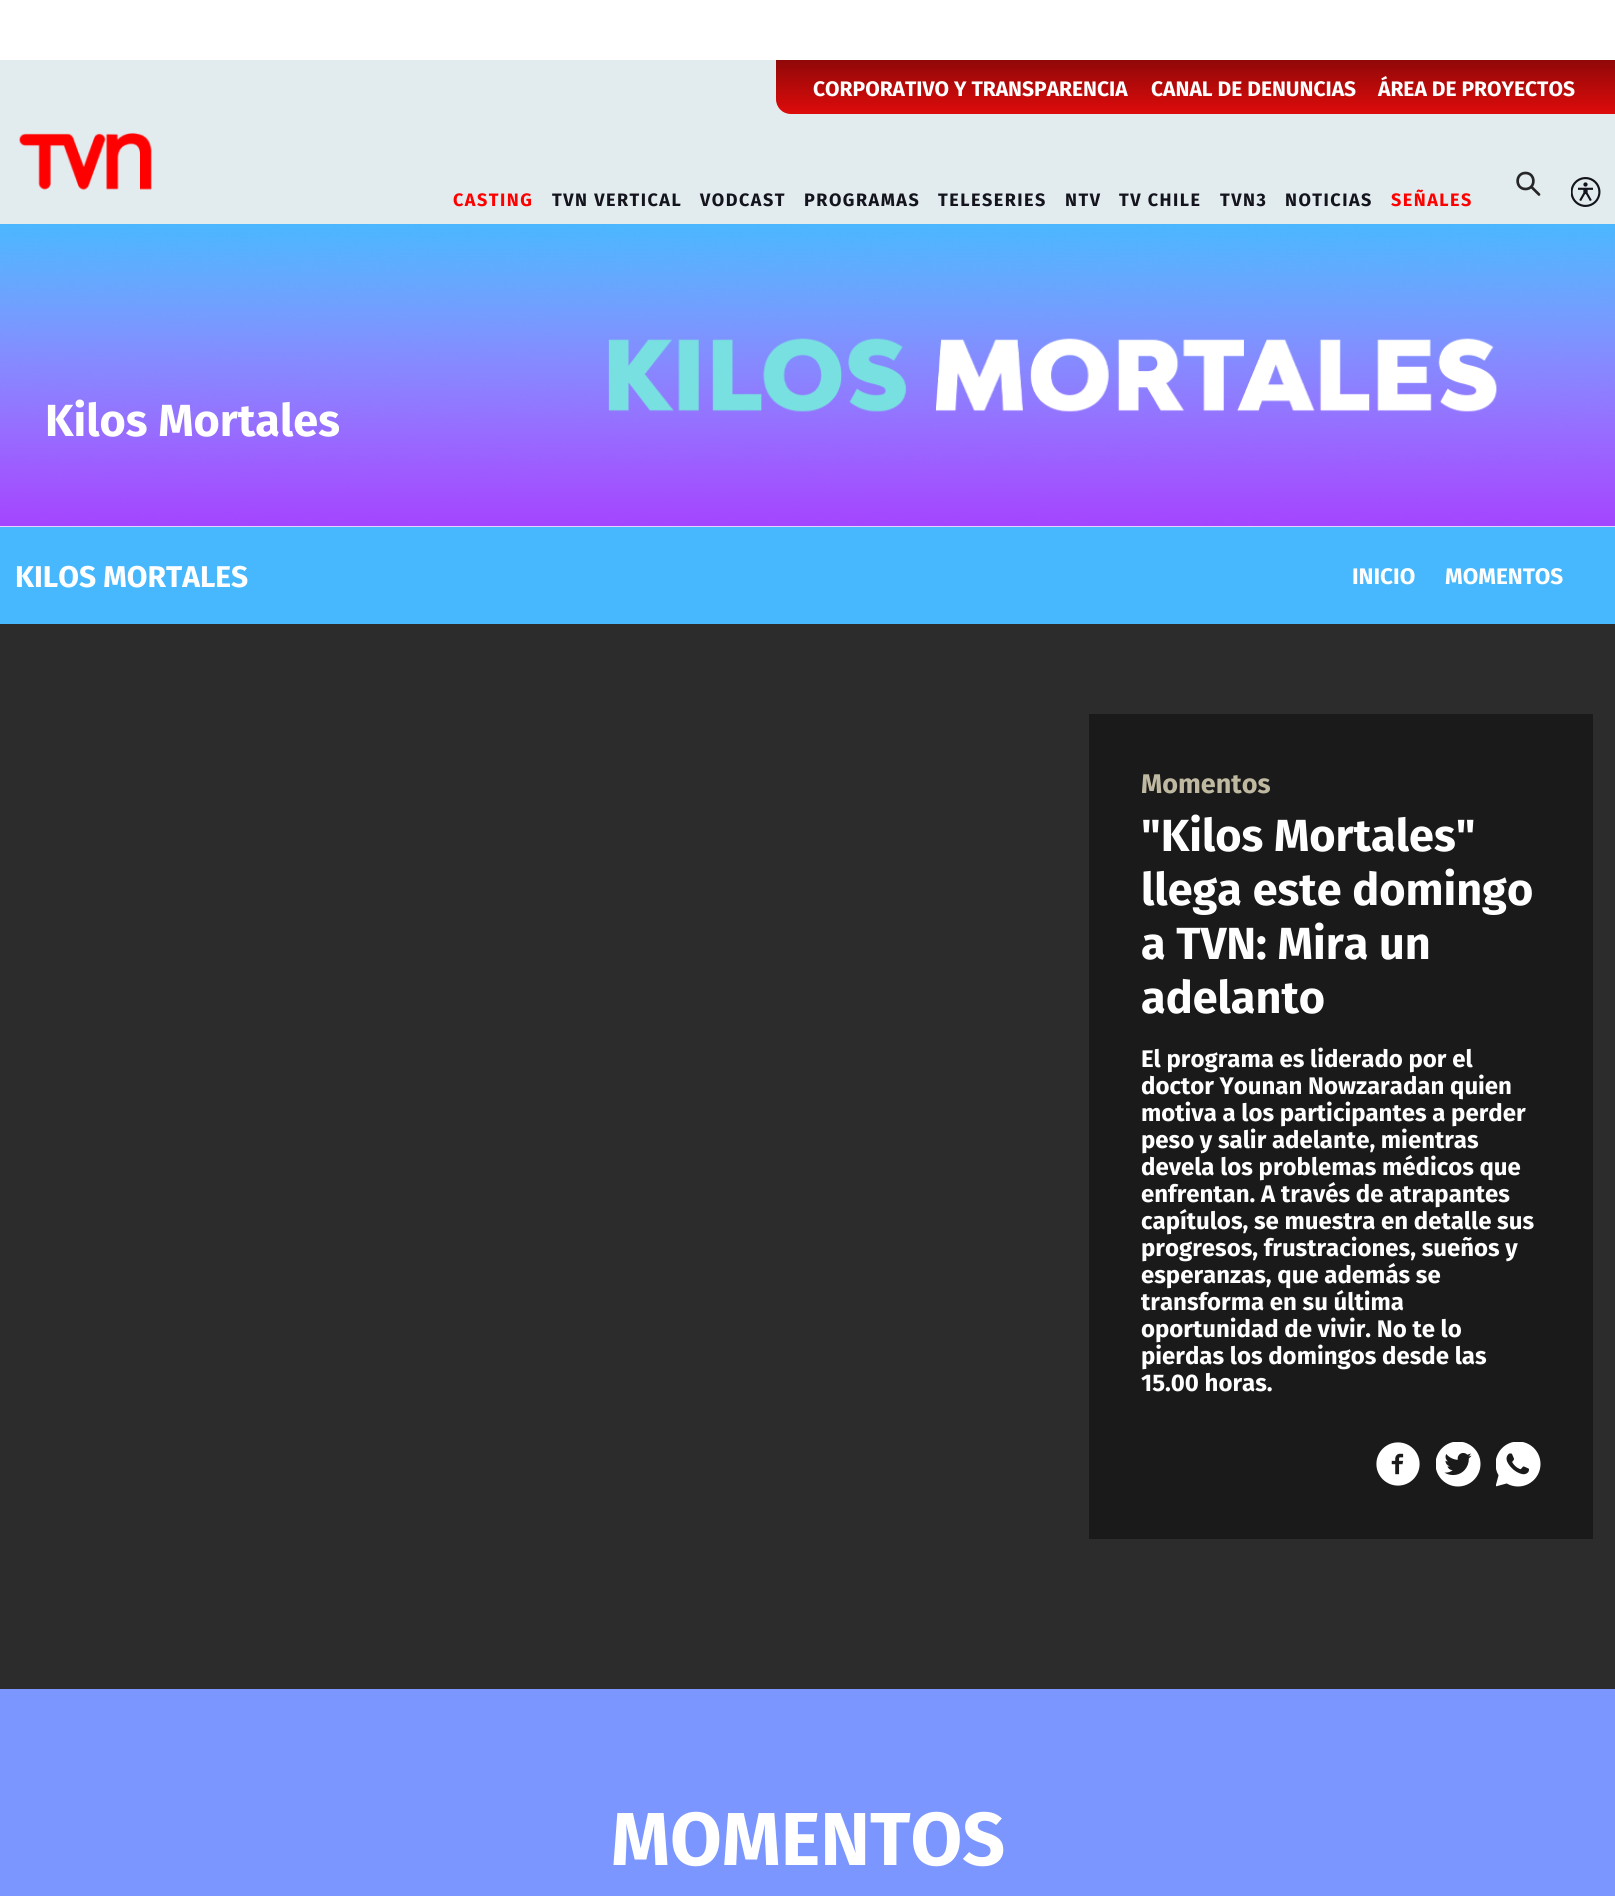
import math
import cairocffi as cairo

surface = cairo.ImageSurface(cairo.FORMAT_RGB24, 1615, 1896)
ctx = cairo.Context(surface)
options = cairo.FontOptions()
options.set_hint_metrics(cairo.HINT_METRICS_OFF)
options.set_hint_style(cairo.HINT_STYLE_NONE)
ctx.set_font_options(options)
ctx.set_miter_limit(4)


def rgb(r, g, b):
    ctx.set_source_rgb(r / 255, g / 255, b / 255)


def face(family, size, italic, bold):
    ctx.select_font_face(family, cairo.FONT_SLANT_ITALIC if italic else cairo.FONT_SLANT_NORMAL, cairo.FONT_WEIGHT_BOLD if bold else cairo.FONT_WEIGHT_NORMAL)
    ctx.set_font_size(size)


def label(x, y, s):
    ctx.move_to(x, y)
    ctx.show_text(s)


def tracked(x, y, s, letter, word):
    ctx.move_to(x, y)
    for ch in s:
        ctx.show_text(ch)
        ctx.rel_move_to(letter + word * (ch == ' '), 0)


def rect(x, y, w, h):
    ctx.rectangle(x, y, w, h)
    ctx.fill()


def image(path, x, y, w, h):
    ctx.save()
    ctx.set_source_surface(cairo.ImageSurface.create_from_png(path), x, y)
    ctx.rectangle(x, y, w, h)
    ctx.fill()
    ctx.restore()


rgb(255, 255, 255)
ctx.paint()
rgb(226, 235, 238)
rect(0, 60, 1615, 164)
gradient = cairo.LinearGradient(1196, 60, 1196, 114)
gradient.add_color_stop_rgba(0, 0.565, 0.031, 0.031, 1)
gradient.add_color_stop_rgba(1, 0.871, 0.043, 0.043, 1)
ctx.set_source(gradient)
ctx.new_path()
ctx.move_to(776, 60)
ctx.line_to(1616, 60)
ctx.line_to(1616, 114)
ctx.line_to(791, 114)
ctx.curve_to(782.5, 114, 776, 107.5, 776, 99)
ctx.close_path()
ctx.fill()
face('Fira Sans', 21, 0, 1)
rgb(255, 255, 255)
label(813, 96, 'CORPORATIVO Y TRANSPARENCIA')
label(1151, 96, 'CANAL DE DENUNCIAS')
label(1378, 96, 'ÁREA DE PROYECTOS')
image('image0.png', 19, 132, 133, 58)
face('Fira Sans', 18, 0, 1)
rgb(255, 0, 0)
tracked(453, 206, 'CASTING', 1.5, 0)
rgb(19, 20, 29)
tracked(552, 206, 'TVN VERTICAL', 1.5, 0)
tracked(700, 206, 'VODCAST', 1.5, 0)
tracked(804, 206, 'PROGRAMAS', 1.5, 0)
tracked(938, 206, 'TELESERIES', 1.5, 0)
tracked(1065, 206, 'NTV', 1.5, 0)
tracked(1119, 206, 'TV CHILE', 1.5, 0)
tracked(1220, 206, 'TVN3', 1.5, 0)
tracked(1285, 206, 'NOTICIAS', 1.5, 0)
rgb(255, 0, 0)
tracked(1391, 206, 'SEÑALES', 1.5, 0)
ctx.new_path()
ctx.move_to(1531.5, 187)
ctx.line_to(1539, 194.5)
ctx.move_to(1525.5, 189)
ctx.curve_to(1536, 189, 1536, 173, 1525.5, 173)
ctx.curve_to(1515, 173, 1515, 189, 1525.5, 189)
ctx.close_path()
rgb(38, 38, 38)
ctx.set_line_width(2.7)
ctx.set_line_cap(cairo.LINE_CAP_ROUND)
ctx.set_line_join(cairo.LINE_JOIN_ROUND)
ctx.stroke()
image('image1.png', 1571, 177, 30, 30)
image('image2.png', 0, 224, 1615, 303)
face('Fira Sans', 45, 0, 1)
rgb(255, 255, 255)
label(45, 436, 'Kilos Mortales')
rgb(72, 184, 254)
rect(0, 527, 1615, 97)
face('Fira Sans', 30, 0, 1)
rgb(255, 255, 255)
label(15, 587, 'KILOS MORTALES')
face('Fira Sans', 22.5, 0, 1)
label(1352, 584, 'INICIO')
label(1445, 584, 'MOMENTOS')
rgb(44, 44, 44)
rect(0, 624, 1615, 1065)
rgb(26, 26, 26)
rect(1089, 714, 504, 825)
face('Fira Sans', 27, 0, 1)
rgb(190, 185, 160)
label(1141, 793, 'Momentos')
face('Fira Sans', 45, 0, 1)
rgb(255, 255, 255)
label(1141, 851, '"Kilos Mortales"')
label(1141, 905, 'llega este domingo')
label(1141, 959, 'a TVN: Mira un')
label(1141, 1013, 'adelanto')
face('Fira Sans', 24, 0, 1)
label(1141, 1067, 'El programa es liderado por el')
label(1141, 1094, 'doctor Younan Nowzaradan quien')
label(1141, 1121, 'motiva a los participantes a perder')
label(1141, 1148, 'peso y salir adelante, mientras')
label(1141, 1175, 'devela los problemas médicos que')
label(1141, 1202, 'enfrentan. A través de atrapantes')
label(1141, 1229, 'capítulos, se muestra en detalle sus')
label(1141, 1256, 'progresos, frustraciones, sueños y')
label(1141, 1283, 'esperanzas, que además se')
label(1141, 1310, 'transforma en su última')
label(1141, 1337, 'oportunidad de vivir. No te lo')
label(1141, 1364, 'pierdas los domingos desde las')
label(1141, 1391, '15.00 horas.')
image('image3.png', 1376, 1442, 44, 44)
image('image4.png', 1436, 1442, 45, 45)
image('image5.png', 1496, 1442, 45, 45)
rgb(123, 150, 255)
rect(0, 1689, 1615, 207)
face('Fira Sans', 75, 0, 1)
rgb(255, 255, 255)
label(611, 1865, 'MOMENTOS')
surface.write_to_png('render.png')
